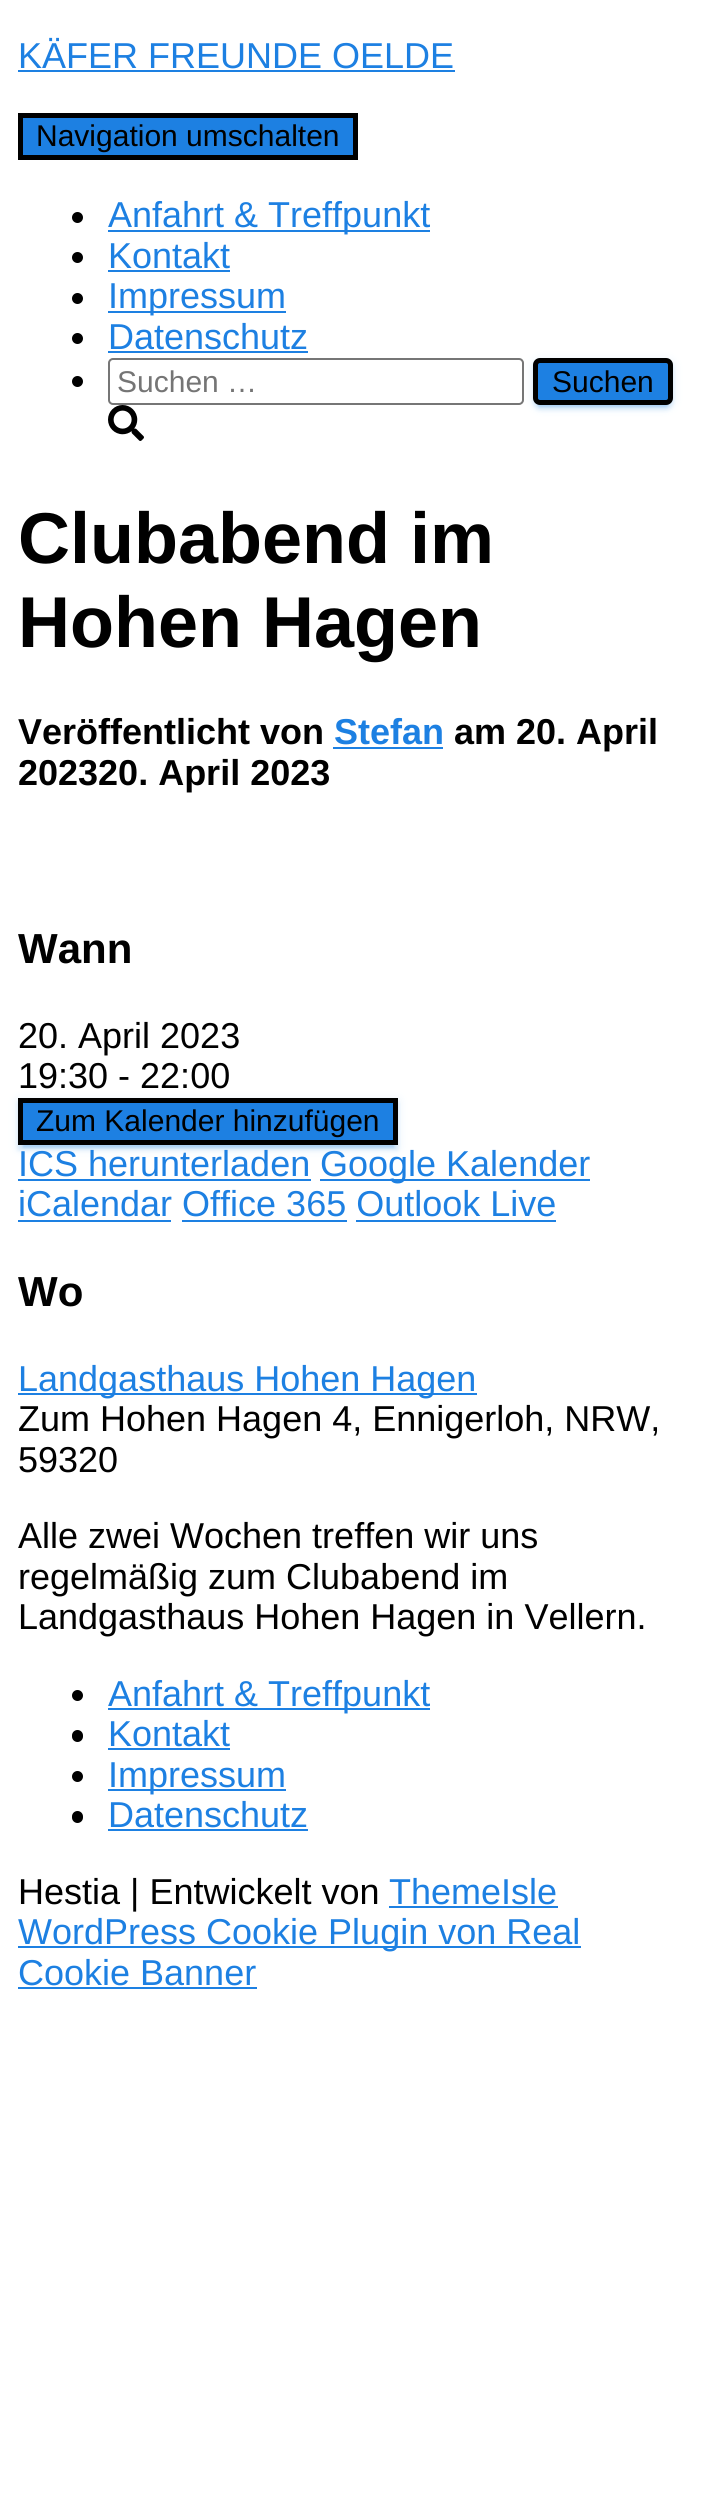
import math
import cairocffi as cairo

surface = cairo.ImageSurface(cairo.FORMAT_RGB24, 718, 2505)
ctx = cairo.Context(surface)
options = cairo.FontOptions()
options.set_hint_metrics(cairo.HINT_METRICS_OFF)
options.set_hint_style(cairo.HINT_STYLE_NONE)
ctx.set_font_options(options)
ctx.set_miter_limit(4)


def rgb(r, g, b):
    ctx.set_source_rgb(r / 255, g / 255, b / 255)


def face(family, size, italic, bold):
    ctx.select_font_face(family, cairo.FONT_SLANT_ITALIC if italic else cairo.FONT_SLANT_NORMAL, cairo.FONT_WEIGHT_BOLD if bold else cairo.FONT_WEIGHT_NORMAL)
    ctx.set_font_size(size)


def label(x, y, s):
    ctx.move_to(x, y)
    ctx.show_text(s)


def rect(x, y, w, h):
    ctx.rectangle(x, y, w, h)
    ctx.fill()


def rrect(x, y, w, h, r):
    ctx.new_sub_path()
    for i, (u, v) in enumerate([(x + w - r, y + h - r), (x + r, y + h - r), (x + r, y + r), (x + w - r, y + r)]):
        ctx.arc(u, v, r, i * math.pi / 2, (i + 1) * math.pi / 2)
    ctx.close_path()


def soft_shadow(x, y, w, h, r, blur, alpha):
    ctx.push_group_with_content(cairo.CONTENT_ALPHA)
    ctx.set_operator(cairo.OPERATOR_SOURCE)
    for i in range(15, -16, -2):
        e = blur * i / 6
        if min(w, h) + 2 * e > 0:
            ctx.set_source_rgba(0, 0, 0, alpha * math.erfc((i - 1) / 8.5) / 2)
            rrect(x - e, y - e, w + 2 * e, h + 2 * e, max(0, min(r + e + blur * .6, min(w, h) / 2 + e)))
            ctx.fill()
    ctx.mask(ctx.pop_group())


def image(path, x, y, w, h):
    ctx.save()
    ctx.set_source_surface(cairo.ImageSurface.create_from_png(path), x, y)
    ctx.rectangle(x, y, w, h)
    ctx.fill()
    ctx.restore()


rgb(255, 255, 255)
ctx.paint()
face('Liberation Sans', 36, 0, 0)
rgb(29, 128, 226)
label(18, 68, 'KÄFER FREUNDE OELDE')
rect(18, 70, 437, 2)
ctx.rectangle(20.5, 115.5, 335, 42)
ctx.fill_preserve()
rgb(0, 0, 0)
ctx.set_line_width(5)
ctx.stroke()
face('Liberation Sans', 30, 0, 0)
label(36, 146, 'Navigation umschalten')
ctx.new_path()
ctx.arc(77.5, 217.5, 5.5, 0, 2 * math.pi)
ctx.fill()
rgb(29, 128, 226)
rect(108, 230, 322, 2)
face('Liberation Sans', 36, 0, 0)
label(108, 227, 'Anfahrt & Treffpunkt')
rgb(0, 0, 0)
ctx.new_path()
ctx.arc(77.5, 257.5, 5.5, 0, 2 * math.pi)
ctx.fill()
rgb(29, 128, 226)
label(108, 268, 'Kontakt')
rect(108, 270, 122, 2)
rgb(0, 0, 0)
ctx.new_path()
ctx.arc(77.5, 298.5, 5.5, 0, 2 * math.pi)
ctx.fill()
rgb(29, 128, 226)
rect(108, 311, 178, 2)
label(108, 308, 'Impressum')
rgb(0, 0, 0)
ctx.new_path()
ctx.arc(77.5, 338.5, 5.5, 0, 2 * math.pi)
ctx.fill()
rgb(29, 128, 226)
label(108, 349, 'Datenschutz')
rect(108, 351, 200, 2)
rgb(0, 0, 0)
ctx.new_path()
ctx.arc(77.5, 381.5, 5.5, 0, 2 * math.pi)
ctx.fill()
rrect(109, 359, 414, 45, 4)
rgb(118, 118, 118)
ctx.set_line_width(2)
ctx.stroke()
face('Liberation Sans', 30, 0, 0)
rgb(117, 117, 117)
label(117, 392, 'Suchen …')
rgb(29, 128, 226)
soft_shadow(533, 360, 140, 47, 7, 5.5, 0.12)
soft_shadow(538, 369, 130, 38, 2, 1, 0.2)
soft_shadow(533, 362, 140, 48, 7, 2, 0.14)
rgb(29, 128, 226)
rrect(535.5, 360.5, 135, 42, 4.5)
ctx.fill_preserve()
rgb(0, 0, 0)
ctx.set_line_width(5)
ctx.stroke()
label(552, 392, 'Suchen')
image('image0.png', 108, 405, 36, 36)
face('Liberation Sans', 72, 0, 1)
label(18, 563, 'Clubabend im')
label(18, 647, 'Hohen Hagen')
face('Liberation Sans', 36, 0, 1)
label(18, 744, 'Veröffentlicht von')
rgb(29, 128, 226)
label(334, 744, 'Stefan')
rect(333, 747, 110, 2)
rgb(0, 0, 0)
label(454, 744, 'am 20. April')
label(18, 785, '202320. April 2023')
face('Liberation Sans', 42, 0, 1)
label(18, 963, 'Wann')
face('Liberation Sans', 36, 0, 0)
label(18, 1048, '20. April 2023')
label(18, 1088, '19:30 - 22:00')
rgb(29, 128, 226)
soft_shadow(18, 1100, 380, 48, 0, 5.5, 0.12)
soft_shadow(23, 1109, 371, 39, 0, 1, 0.2)
soft_shadow(18, 1103, 380, 47, 0, 2, 0.14)
rgb(29, 128, 226)
ctx.rectangle(20.5, 1100.5, 375, 42)
ctx.fill_preserve()
rgb(0, 0, 0)
ctx.stroke()
face('Liberation Sans', 30, 0, 0)
label(36, 1131, 'Zum Kalender hinzufügen')
face('Liberation Sans', 36, 0, 0)
rgb(29, 128, 226)
label(18, 1176, 'ICS herunterladen')
rect(18, 1179, 293, 2)
rect(320, 1179, 270, 2)
label(320, 1176, 'Google Kalender')
label(18, 1216, 'iCalendar Office 365 Outlook Live')
rect(18, 1220, 153, 2)
rect(182, 1220, 165, 2)
rect(356, 1220, 200, 2)
face('Liberation Sans', 42, 0, 1)
rgb(0, 0, 0)
label(18, 1306, 'Wo')
rgb(29, 128, 226)
rect(18, 1393, 459, 2)
face('Liberation Sans', 36, 0, 0)
label(18, 1391, 'Landgasthaus Hohen Hagen')
rgb(0, 0, 0)
label(18, 1431, 'Zum Hohen Hagen 4, Ennigerloh, NRW,')
label(18, 1472, '59320')
label(18, 1548, 'Alle zwei Wochen treffen wir uns')
label(18, 1589, 'regelmäßig zum Clubabend im')
label(18, 1629, 'Landgasthaus Hohen Hagen in Vellern.')
ctx.new_path()
ctx.arc(77.5, 1695.5, 5.5, 0, 2 * math.pi)
ctx.fill()
rgb(29, 128, 226)
rect(108, 1708, 322, 2)
label(108, 1706, 'Anfahrt & Treffpunkt')
rgb(0, 0, 0)
rrect(72, 1730, 11, 12, 5.5)
ctx.fill()
rgb(29, 128, 226)
label(108, 1746, 'Kontakt')
rect(108, 1748, 122, 2)
rgb(0, 0, 0)
ctx.new_path()
ctx.arc(77.5, 1776.5, 5.5, 0, 2 * math.pi)
ctx.fill()
rgb(29, 128, 226)
rect(108, 1789, 178, 2)
label(108, 1787, 'Impressum')
rgb(0, 0, 0)
rrect(72, 1811, 11, 12, 5.5)
ctx.fill()
rgb(29, 128, 226)
label(108, 1827, 'Datenschutz')
rect(108, 1829, 200, 2)
rgb(0, 0, 0)
label(18, 1904, 'Hestia | Entwickelt von')
rgb(29, 128, 226)
label(389, 1904, 'ThemeIsle')
rect(389, 1906, 169, 2)
rect(18, 1946, 563, 2)
label(18, 1944, 'WordPress Cookie Plugin von Real')
label(18, 1985, 'Cookie Banner')
rect(18, 1987, 239, 2)
surface.write_to_png('render.png')
